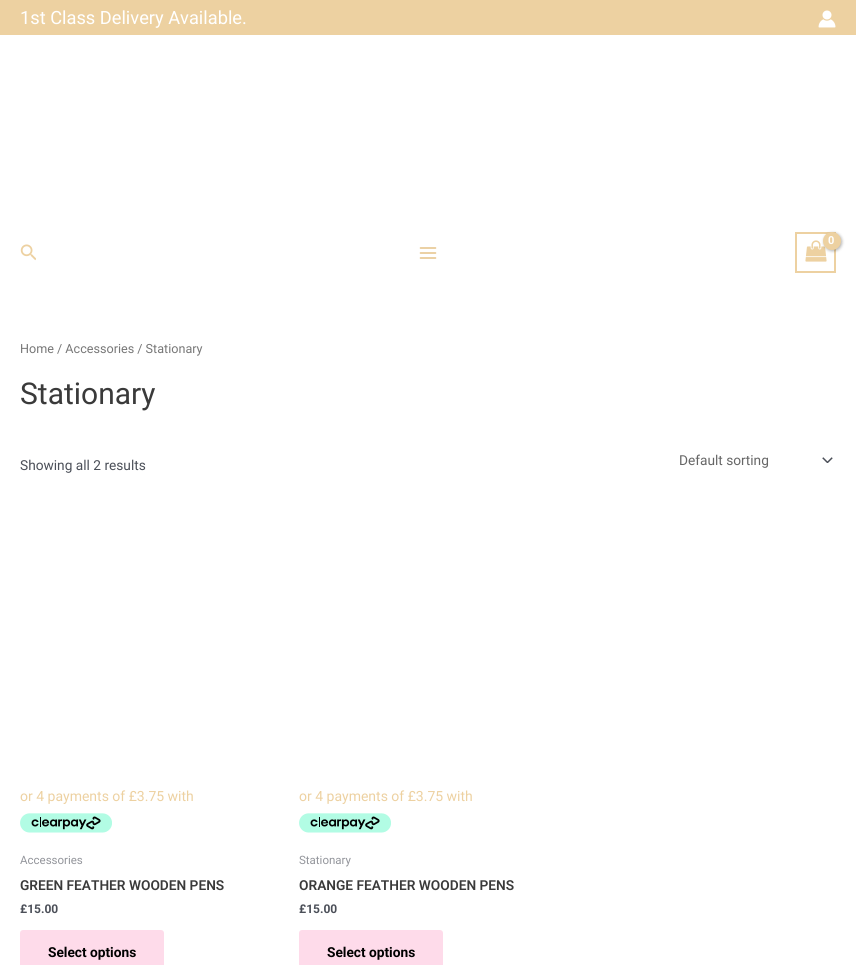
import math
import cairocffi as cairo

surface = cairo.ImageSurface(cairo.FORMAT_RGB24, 856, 965)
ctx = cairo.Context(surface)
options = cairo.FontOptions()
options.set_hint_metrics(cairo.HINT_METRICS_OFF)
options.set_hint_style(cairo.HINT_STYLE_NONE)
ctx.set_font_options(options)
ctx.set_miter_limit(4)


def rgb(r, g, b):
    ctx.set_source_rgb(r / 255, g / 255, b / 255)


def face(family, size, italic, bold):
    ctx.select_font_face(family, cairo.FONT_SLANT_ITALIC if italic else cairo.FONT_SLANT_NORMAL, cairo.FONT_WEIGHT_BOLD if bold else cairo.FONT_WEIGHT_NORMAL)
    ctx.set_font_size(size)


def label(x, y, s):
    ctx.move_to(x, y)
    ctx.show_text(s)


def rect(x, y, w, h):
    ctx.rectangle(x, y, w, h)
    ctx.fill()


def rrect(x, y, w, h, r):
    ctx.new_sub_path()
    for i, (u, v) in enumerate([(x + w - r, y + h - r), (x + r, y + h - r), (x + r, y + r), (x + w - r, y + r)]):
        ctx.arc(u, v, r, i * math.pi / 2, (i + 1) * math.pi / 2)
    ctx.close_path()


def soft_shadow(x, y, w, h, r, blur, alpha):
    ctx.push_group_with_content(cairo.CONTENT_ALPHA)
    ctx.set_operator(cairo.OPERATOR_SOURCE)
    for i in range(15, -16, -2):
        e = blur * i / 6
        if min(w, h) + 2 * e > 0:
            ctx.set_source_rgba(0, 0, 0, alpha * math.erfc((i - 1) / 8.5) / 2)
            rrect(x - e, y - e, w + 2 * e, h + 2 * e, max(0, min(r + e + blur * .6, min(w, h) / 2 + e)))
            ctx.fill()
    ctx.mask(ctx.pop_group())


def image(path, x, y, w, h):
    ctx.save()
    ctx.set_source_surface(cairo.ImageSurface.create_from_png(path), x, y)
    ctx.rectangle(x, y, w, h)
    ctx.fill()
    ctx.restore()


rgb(255, 255, 255)
ctx.paint()
rgb(237, 209, 161)
rect(0, 0, 856, 35)
face('Roboto', 18.25, 0, 0)
rgb(255, 255, 255)
label(20, 24, '1st Class Delivery Available.')
image('image0.png', 818, 10, 18, 18)
ctx.rectangle(796, 233, 39, 39)
rgb(237, 209, 161)
ctx.stroke()
image('image1.png', 805, 240, 22, 22)
rgb(0, 0, 0)
soft_shadow(824, 233, 18, 18, 9, 1.5, 0.3)
rgb(237, 209, 161)
ctx.arc(832, 241, 9, 0, 2 * math.pi)
ctx.fill()
face('Roboto', 11, 0, 1)
rgb(255, 255, 255)
label(828, 244, '0')
image('image2.png', 20, 244, 16, 17)
image('image3.png', 419, 247, 18, 12)
face('Roboto', 12.6, 0, 0)
rgb(119, 119, 119)
label(20, 353, 'Home / Accessories / Stationary')
face('Roboto', 30, 0, 0)
rgb(58, 58, 58)
label(20, 404, 'Stationary')
face('Roboto', 13.7, 0, 0)
rgb(75, 79, 88)
label(20, 470, 'Showing all 2 results')
image('image4.png', 822, 457, 11, 6)
rgb(102, 102, 102)
label(679, 465, 'Default sorting')
face('Roboto', 14, 0, 0)
rgb(237, 209, 161)
label(20, 801, 'or 4 payments of £3.75 with')
image('image5.png', 20, 813, 92, 20)
face('Roboto', 11.5, 0, 0)
rgb(147, 149, 155)
label(20, 864, 'Accessories')
face('Roboto SemiBold', 13.7, 0, 0)
rgb(58, 58, 58)
label(20, 890, 'GREEN FEATHER WOODEN PENS')
face('Roboto', 12, 0, 1)
rgb(75, 79, 88)
label(20, 913, '£15.00')
rgb(254, 219, 234)
rrect(20, 930, 144, 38, 3)
ctx.fill()
face('Roboto', 13.7, 0, 1)
rgb(0, 0, 0)
label(48, 957, 'Select options')
face('Roboto', 14, 0, 0)
rgb(237, 209, 161)
label(299, 801, 'or 4 payments of £3.75 with')
image('image5.png', 299, 813, 92, 20)
face('Roboto', 11.5, 0, 0)
rgb(147, 149, 155)
label(299, 864, 'Stationary')
face('Roboto SemiBold', 13.7, 0, 0)
rgb(58, 58, 58)
label(299, 890, 'ORANGE FEATHER WOODEN PENS')
face('Roboto', 12, 0, 1)
rgb(75, 79, 88)
label(299, 913, '£15.00')
rgb(254, 219, 234)
rrect(299, 930, 144, 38, 3)
ctx.fill()
face('Roboto', 13.7, 0, 1)
rgb(0, 0, 0)
label(327, 957, 'Select options')
surface.write_to_png('render.png')
